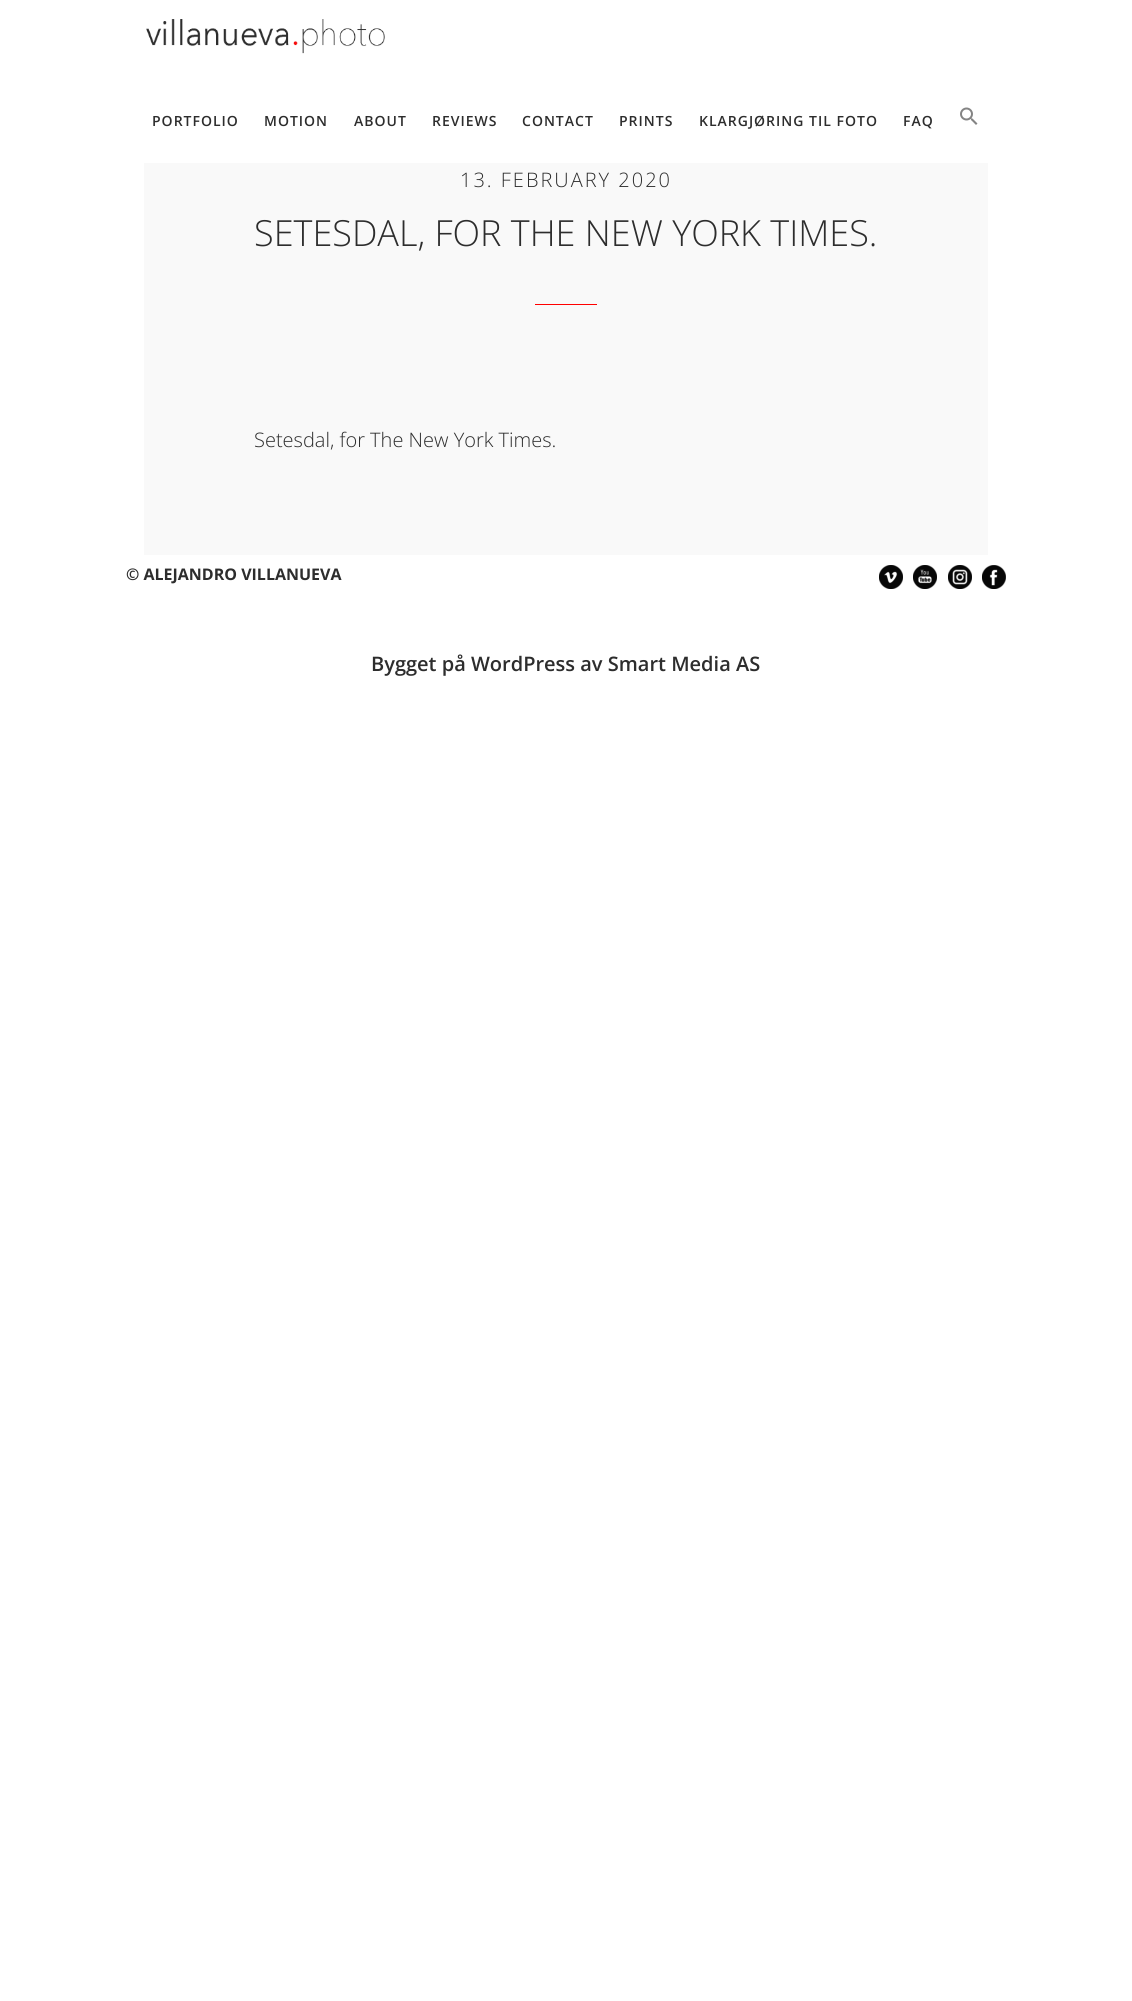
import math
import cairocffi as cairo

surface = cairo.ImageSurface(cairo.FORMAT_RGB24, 1132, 2001)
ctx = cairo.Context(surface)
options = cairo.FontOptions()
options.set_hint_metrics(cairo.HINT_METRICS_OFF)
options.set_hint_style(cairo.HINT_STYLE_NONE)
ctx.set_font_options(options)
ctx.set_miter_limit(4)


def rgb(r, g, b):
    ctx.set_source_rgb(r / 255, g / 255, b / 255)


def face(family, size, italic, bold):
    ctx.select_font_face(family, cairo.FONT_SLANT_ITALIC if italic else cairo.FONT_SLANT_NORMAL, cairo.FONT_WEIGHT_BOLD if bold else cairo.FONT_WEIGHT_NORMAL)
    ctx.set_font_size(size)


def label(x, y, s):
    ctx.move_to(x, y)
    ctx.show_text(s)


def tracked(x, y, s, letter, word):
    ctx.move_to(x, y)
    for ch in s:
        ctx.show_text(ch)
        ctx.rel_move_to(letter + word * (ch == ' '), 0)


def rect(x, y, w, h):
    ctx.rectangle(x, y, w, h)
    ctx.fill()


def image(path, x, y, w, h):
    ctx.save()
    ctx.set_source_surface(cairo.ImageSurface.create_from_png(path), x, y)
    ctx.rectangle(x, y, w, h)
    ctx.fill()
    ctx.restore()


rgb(255, 255, 255)
ctx.paint()
image('image0.png', 146, 19, 239, 35)
face('Open Sans SemiBold', 14, 0, 0)
rgb(45, 45, 45)
tracked(152, 126, 'PORTFOLIO', 1, 0)
tracked(264, 126, 'MOTION', 1, 0)
tracked(354, 126, 'ABOUT', 1, 0)
tracked(432, 126, 'REVIEWS', 1, 0)
tracked(522, 126, 'CONTACT', 1, 0)
tracked(619, 126, 'PRINTS', 1, 0)
tracked(699, 126, 'KLARGJØRING TIL FOTO', 1, 0)
tracked(903, 126, 'FAQ', 1, 0)
image('image1.png', 960, 107, 18, 18)
rgb(249, 249, 249)
rect(144, 163, 844, 392)
face('Open Sans Light', 20, 0, 0)
rgb(45, 45, 45)
tracked(460, 187, '13. FEBRUARY 2020', 2, 0)
face('Open Sans Light', 36, 0, 0)
label(254, 246, 'SETESDAL, FOR THE NEW YORK TIMES.')
rgb(255, 0, 0)
rect(535, 304, 62, 1)
face('Open Sans Light', 20, 0, 0)
rgb(45, 45, 45)
label(254, 447, 'Setesdal, for The New York Times.')
face('Open Sans', 16, 0, 1)
label(126, 580, '© ALEJANDRO VILLANUEVA')
image('image2.png', 879, 565, 24, 24)
image('image3.png', 913, 565, 24, 24)
image('image4.png', 948, 565, 24, 24)
image('image5.png', 982, 565, 24, 24)
face('Open Sans SemiBold', 20, 0, 0)
label(371, 671, 'Bygget på WordPress av Smart Media AS')
surface.write_to_png('render.png')
